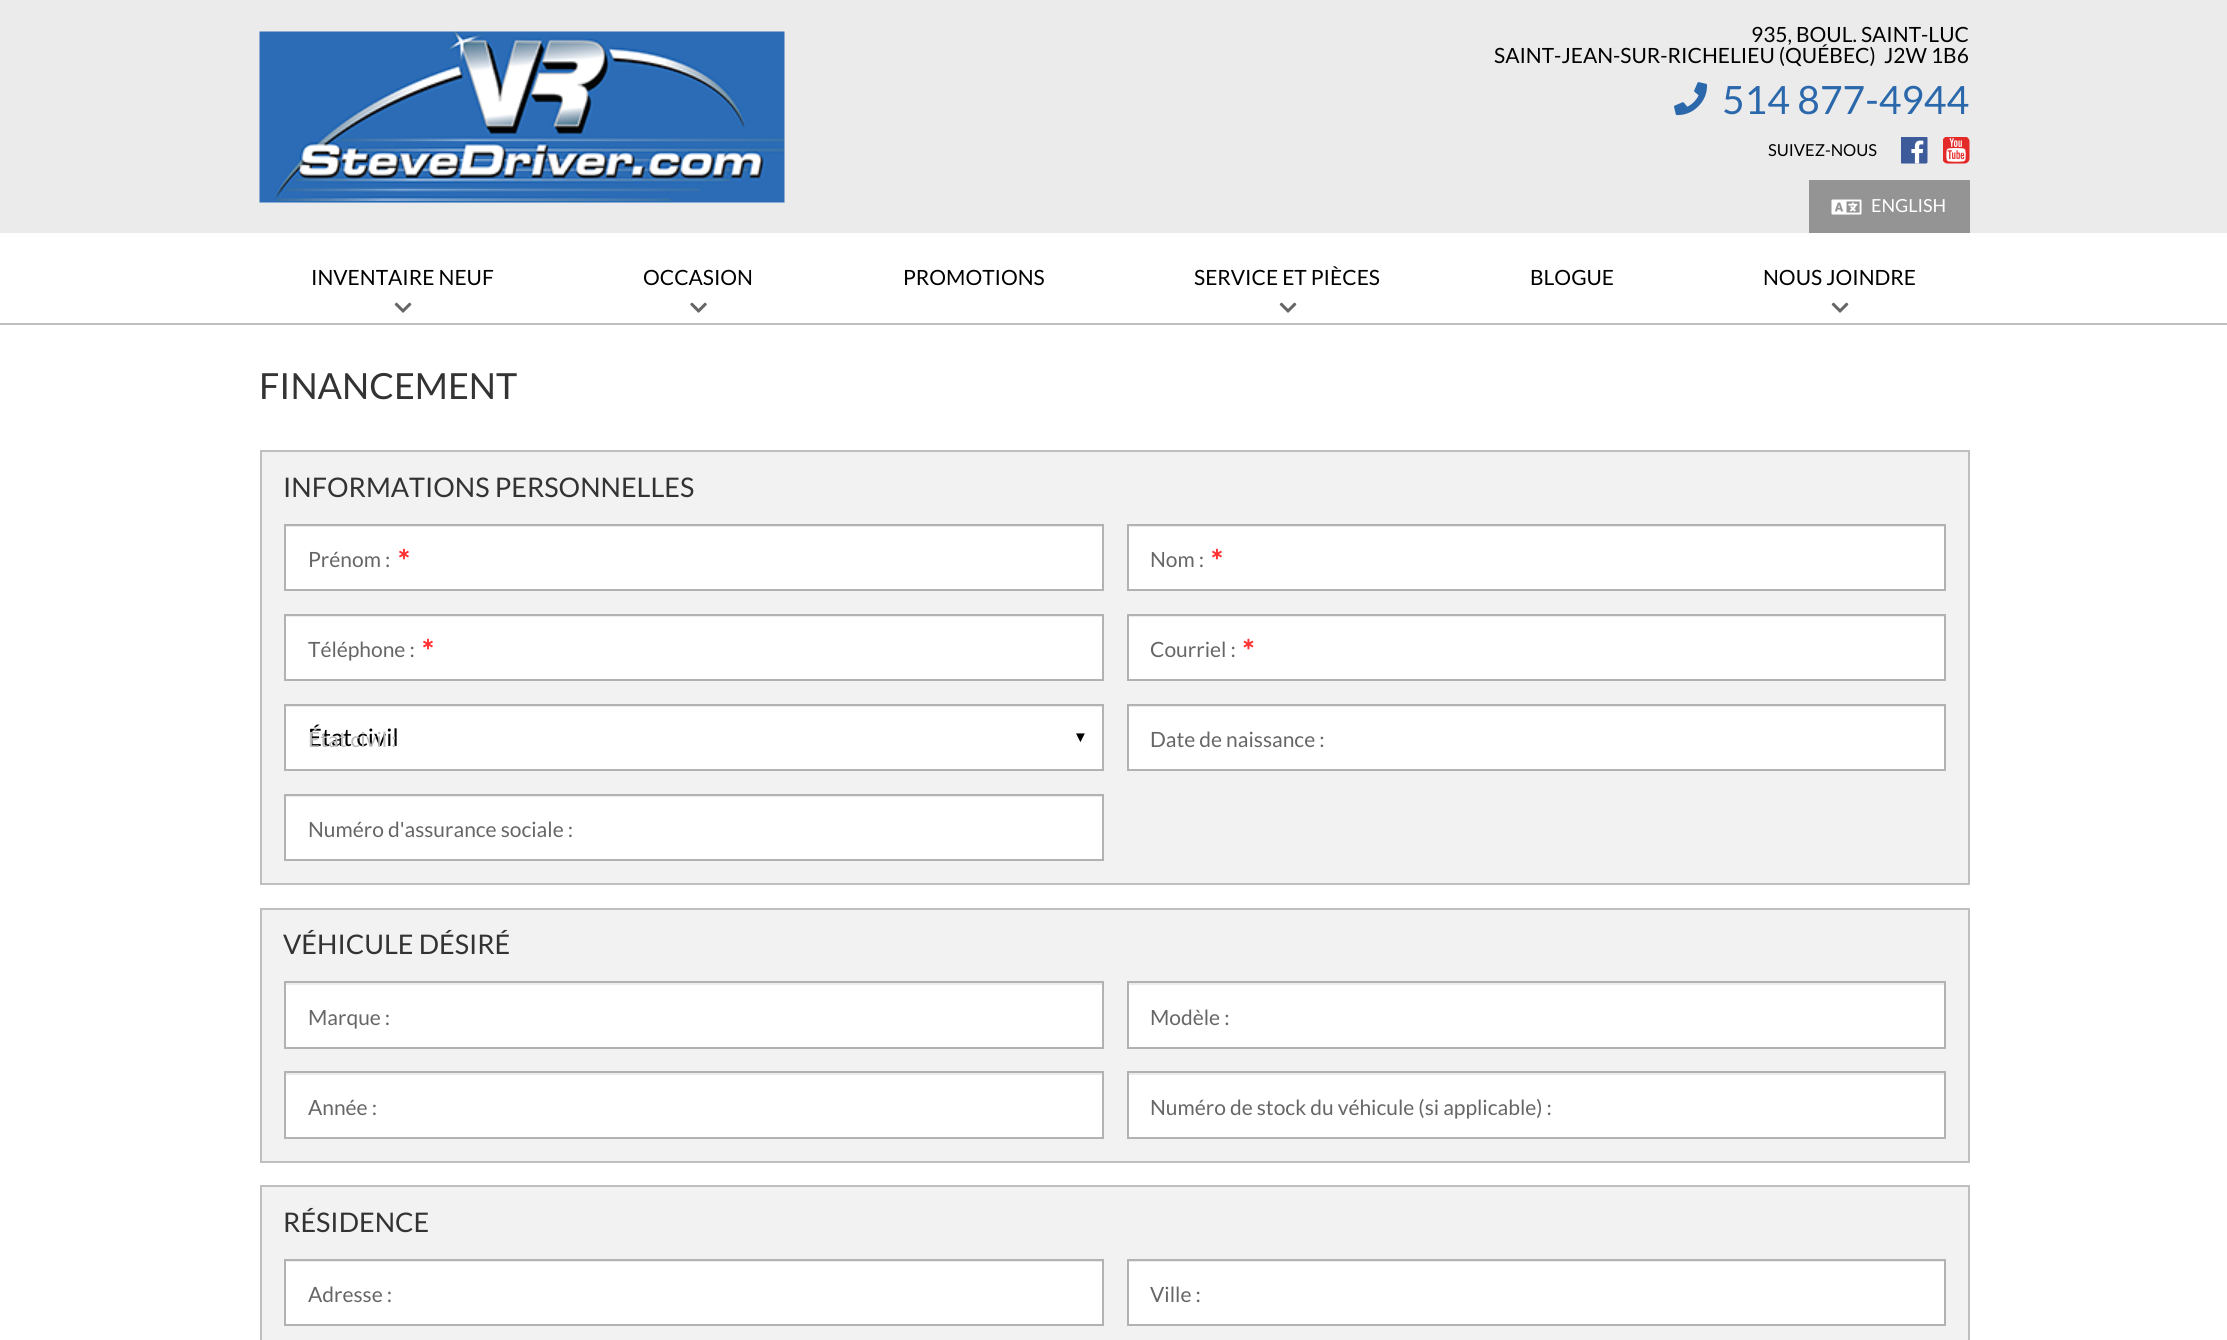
import math
import cairocffi as cairo

surface = cairo.ImageSurface(cairo.FORMAT_RGB24, 2227, 1340)
ctx = cairo.Context(surface)
options = cairo.FontOptions()
options.set_hint_metrics(cairo.HINT_METRICS_OFF)
options.set_hint_style(cairo.HINT_STYLE_NONE)
ctx.set_font_options(options)
ctx.set_miter_limit(4)


def rgb(r, g, b):
    ctx.set_source_rgb(r / 255, g / 255, b / 255)


def face(family, size, italic, bold):
    ctx.select_font_face(family, cairo.FONT_SLANT_ITALIC if italic else cairo.FONT_SLANT_NORMAL, cairo.FONT_WEIGHT_BOLD if bold else cairo.FONT_WEIGHT_NORMAL)
    ctx.set_font_size(size)


def label(x, y, s):
    ctx.move_to(x, y)
    ctx.show_text(s)


def rect(x, y, w, h):
    ctx.rectangle(x, y, w, h)
    ctx.fill()


def image(path, x, y, w, h):
    ctx.save()
    ctx.set_source_surface(cairo.ImageSurface.create_from_png(path), x, y)
    ctx.rectangle(x, y, w, h)
    ctx.fill()
    ctx.restore()


rgb(235, 235, 235)
ctx.paint()
image('image0.png', 259, 31, 526, 172)
face('Lato', 21, 0, 0)
rgb(0, 0, 0)
label(1751, 42, '935, BOUL. SAINT-LUC')
label(1494, 63, 'SAINT-JEAN-SUR-RICHELIEU (QUÉBEC)')
label(1884, 63, 'J2W 1B6')
image('image1.png', 1674, 82, 34, 34)
face('Lato', 39, 0, 0)
rgb(43, 104, 171)
label(1722, 114, '514 877-4944')
face('Lato', 16.5, 0, 0)
rgb(0, 0, 0)
label(1768, 156, 'SUIVEZ-NOUS')
image('image2.png', 1901, 137, 27, 27)
image('image3.png', 1943, 137, 27, 27)
rgb(148, 148, 148)
rect(1809, 180, 161, 53)
image('image4.png', 1831, 199, 31, 16)
face('Lato', 18, 0, 0)
rgb(255, 255, 255)
label(1871, 212, 'ENGLISH')
rect(0, 233, 2227, 90)
face('Lato', 21, 0, 0)
rgb(0, 0, 0)
label(311, 285, 'INVENTAIRE NEUF')
image('image5.png', 394, 302, 18, 11)
label(643, 285, 'OCCASION')
image('image6.png', 690, 302, 17, 11)
label(903, 285, 'PROMOTIONS')
label(1194, 285, 'SERVICE ET PIÈCES')
image('image5.png', 1279, 302, 18, 11)
label(1530, 285, 'BLOGUE')
label(1763, 285, 'NOUS JOINDRE')
image('image5.png', 1831, 302, 18, 11)
rgb(255, 255, 255)
rect(0, 325, 2227, 1015)
rgb(191, 191, 191)
rect(0, 323, 2227, 2)
face('Lato', 36, 0, 0)
rgb(51, 51, 51)
label(259, 399, 'FINANCEMENT')
rgb(242, 242, 242)
ctx.rectangle(261, 451, 1708, 433)
ctx.fill_preserve()
rgb(191, 191, 191)
ctx.stroke()
face('Lato', 27, 0, 0)
rgb(51, 51, 51)
label(283, 497, 'INFORMATIONS PERSONNELLES')
rgb(255, 255, 255)
rect(286, 527, 816, 62)
rgb(236, 236, 236)
rect(285, 526, 818, 1)
ctx.rectangle(285, 525, 818, 65)
rgb(179, 178, 178)
ctx.stroke()
face('Lato', 21, 0, 0)
rgb(102, 102, 102)
label(308, 567, 'Prénom :')
image('image7.png', 399, 548, 10, 12)
rgb(255, 255, 255)
rect(1129, 527, 815, 62)
rgb(236, 236, 236)
rect(1128, 526, 816, 1)
ctx.rectangle(1128, 525, 817, 65)
rgb(179, 178, 178)
ctx.stroke()
rgb(102, 102, 102)
label(1150, 567, 'Nom :')
image('image7.png', 1212, 548, 10, 12)
rgb(255, 255, 255)
rect(286, 617, 816, 62)
rgb(236, 236, 236)
rect(285, 616, 818, 1)
ctx.rectangle(285, 615, 818, 65)
rgb(179, 178, 178)
ctx.stroke()
rgb(102, 102, 102)
label(308, 657, 'Téléphone :')
image('image7.png', 423, 638, 10, 12)
rgb(255, 255, 255)
rect(1129, 617, 815, 62)
rgb(236, 236, 236)
rect(1128, 616, 816, 1)
ctx.rectangle(1128, 615, 817, 65)
rgb(179, 178, 178)
ctx.stroke()
rgb(102, 102, 102)
label(1150, 657, 'Courriel :')
image('image8.png', 1243, 638, 11, 12)
rgb(255, 255, 255)
rect(286, 707, 816, 62)
rgb(236, 236, 236)
rect(285, 706, 818, 1)
ctx.rectangle(285, 705, 818, 65)
rgb(179, 178, 178)
ctx.stroke()
face('Lato', 24, 0, 0)
rgb(0, 0, 0)
label(308, 746, 'État civil')
face('Liberation Sans', 15, 0, 0)
label(1073, 742, '▼')
face('Lato', 21, 0, 0)
rgb(188, 188, 188)
label(308, 747, 'État civil :')
rgb(255, 255, 255)
rect(1129, 707, 815, 62)
rgb(236, 236, 236)
rect(1128, 706, 816, 1)
ctx.rectangle(1128, 705, 817, 65)
rgb(179, 178, 178)
ctx.stroke()
rgb(102, 102, 102)
label(1150, 747, 'Date de naissance :')
rgb(255, 255, 255)
rect(286, 797, 816, 62)
rgb(236, 236, 236)
rect(285, 796, 818, 1)
ctx.rectangle(285, 795, 818, 65)
rgb(179, 178, 178)
ctx.stroke()
rgb(102, 102, 102)
label(308, 837, 'Numéro d\'assurance sociale :')
rgb(242, 242, 242)
ctx.rectangle(261, 909, 1708, 253)
ctx.fill_preserve()
rgb(191, 191, 191)
ctx.stroke()
face('Lato', 27, 0, 0)
rgb(51, 51, 51)
label(283, 954, 'VÉHICULE DÉSIRÉ')
rgb(255, 255, 255)
rect(286, 985, 816, 62)
rgb(236, 236, 236)
rect(285, 983, 818, 2)
ctx.rectangle(285, 982, 818, 66)
rgb(179, 178, 178)
ctx.stroke()
face('Lato', 21, 0, 0)
rgb(102, 102, 102)
label(308, 1025, 'Marque :')
rgb(255, 255, 255)
rect(1129, 985, 815, 62)
rgb(236, 236, 236)
rect(1128, 983, 816, 2)
ctx.rectangle(1128, 982, 817, 66)
rgb(179, 178, 178)
ctx.stroke()
rgb(102, 102, 102)
label(1150, 1025, 'Modèle :')
rgb(255, 255, 255)
rect(286, 1075, 816, 62)
rgb(236, 236, 236)
rect(285, 1073, 818, 2)
ctx.rectangle(285, 1072, 818, 66)
rgb(179, 178, 178)
ctx.stroke()
rgb(102, 102, 102)
label(308, 1115, 'Année :')
rgb(255, 255, 255)
rect(1129, 1075, 815, 62)
rgb(236, 236, 236)
rect(1128, 1073, 816, 2)
ctx.rectangle(1128, 1072, 817, 66)
rgb(179, 178, 178)
ctx.stroke()
rgb(102, 102, 102)
label(1150, 1115, 'Numéro de stock du véhicule (si applicable) :')
rgb(242, 242, 242)
ctx.rectangle(261, 1186, 1708, 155)
ctx.fill_preserve()
rgb(191, 191, 191)
ctx.stroke()
face('Lato', 27, 0, 0)
rgb(51, 51, 51)
label(283, 1232, 'RÉSIDENCE')
rgb(255, 255, 255)
rect(286, 1262, 816, 62)
rgb(236, 236, 236)
rect(285, 1261, 818, 1)
ctx.rectangle(285, 1260, 818, 65)
rgb(179, 178, 178)
ctx.stroke()
face('Lato', 21, 0, 0)
rgb(102, 102, 102)
label(308, 1302, 'Adresse :')
rgb(255, 255, 255)
rect(1129, 1262, 815, 62)
rgb(236, 236, 236)
rect(1128, 1261, 816, 1)
ctx.rectangle(1128, 1260, 817, 65)
rgb(179, 178, 178)
ctx.stroke()
rgb(102, 102, 102)
label(1150, 1302, 'Ville :')
surface.write_to_png('render.png')
